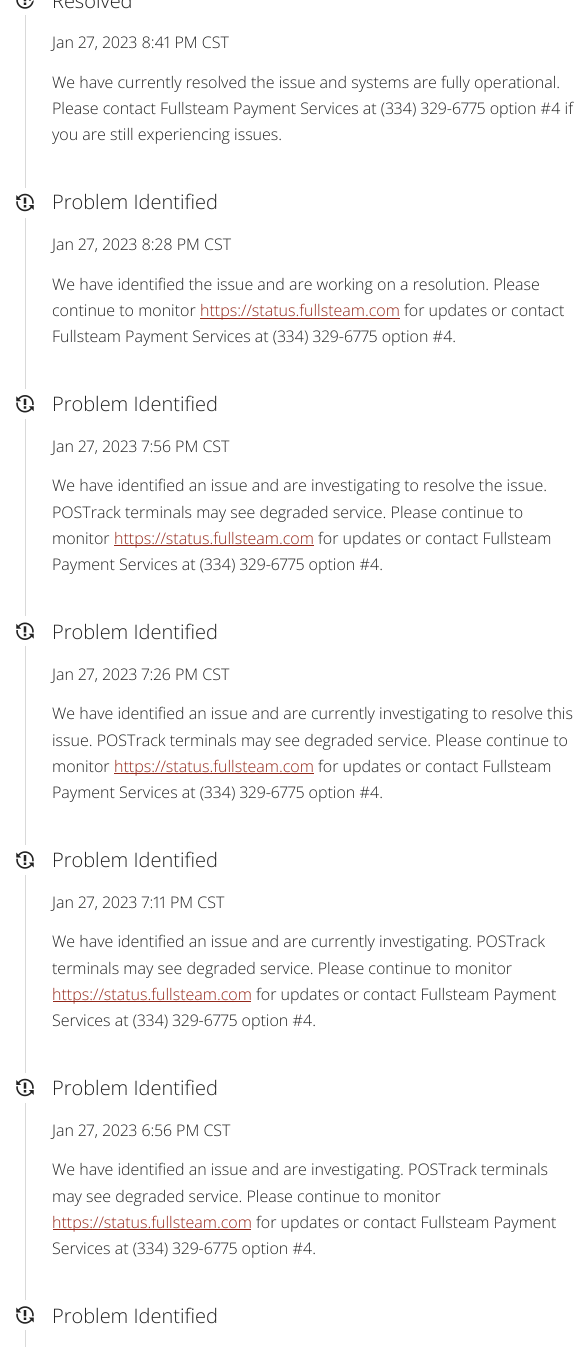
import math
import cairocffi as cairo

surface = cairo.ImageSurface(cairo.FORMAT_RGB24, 585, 1347)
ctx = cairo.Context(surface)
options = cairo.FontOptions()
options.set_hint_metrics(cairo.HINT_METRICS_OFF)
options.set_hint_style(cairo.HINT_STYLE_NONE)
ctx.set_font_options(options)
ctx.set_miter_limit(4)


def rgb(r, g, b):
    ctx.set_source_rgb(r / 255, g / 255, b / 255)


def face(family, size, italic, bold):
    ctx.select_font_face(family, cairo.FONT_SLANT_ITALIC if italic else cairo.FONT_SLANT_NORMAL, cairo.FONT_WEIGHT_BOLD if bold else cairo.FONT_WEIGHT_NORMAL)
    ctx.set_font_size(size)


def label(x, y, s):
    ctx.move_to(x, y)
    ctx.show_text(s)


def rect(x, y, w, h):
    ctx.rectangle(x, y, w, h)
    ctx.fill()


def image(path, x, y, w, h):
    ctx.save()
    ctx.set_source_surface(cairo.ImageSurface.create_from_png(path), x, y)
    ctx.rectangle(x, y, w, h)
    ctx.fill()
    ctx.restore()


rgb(255, 255, 255)
ctx.paint()
rgb(217, 217, 217)
rect(25, 15, 1, 1332)
image('image0.png', 16, 0, 18, 9)
face('Open Sans Light', 20, 0, 0)
rgb(34, 34, 34)
label(52, 8, 'Resolved')
face('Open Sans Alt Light', 16, 0, 0)
label(52, 48, 'Jan 27, 2023 8:41 PM CST')
face('Open Sans Light', 16, 0, 0)
label(52, 88, 'We have currently resolved the issue and systems are fully operational.')
face('Open Sans Alt Light', 16, 0, 0)
label(52, 114, 'Please contact Fullsteam Payment Services at (334) 329-6775 option #4 if')
face('Open Sans Light', 16, 0, 0)
label(52, 140, 'you are still experiencing issues.')
rgb(255, 255, 255)
rect(25, 188, 1, 30)
image('image1.png', 16, 193, 18, 19)
face('Open Sans Light', 20, 0, 0)
rgb(34, 34, 34)
label(52, 209, 'Problem Identified')
face('Open Sans Alt Light', 16, 0, 0)
label(52, 250, 'Jan 27, 2023 8:28 PM CST')
face('Open Sans Light', 16, 0, 0)
label(52, 290, 'We have identified the issue and are working on a resolution. Please')
label(52, 316, 'continue to monitor')
rgb(148, 40, 27)
rect(200, 318, 200, 1)
label(200, 316, 'https://status.fullsteam.com')
rgb(34, 34, 34)
label(404, 316, 'for updates or contact')
face('Open Sans Alt Light', 16, 0, 0)
label(52, 342, 'Fullsteam Payment Services at (334) 329-6775 option #4.')
rgb(255, 255, 255)
rect(25, 389, 1, 30)
image('image2.png', 16, 395, 18, 18)
face('Open Sans Light', 20, 0, 0)
rgb(34, 34, 34)
label(52, 411, 'Problem Identified')
face('Open Sans Alt Light', 16, 0, 0)
label(52, 452, 'Jan 27, 2023 7:56 PM CST')
face('Open Sans Light', 16, 0, 0)
label(52, 491, 'We have identified an issue and are investigating to resolve the issue.')
label(52, 518, 'POSTrack terminals may see degraded service. Please continue to')
label(52, 544, 'monitor')
rgb(148, 40, 27)
rect(114, 545, 200, 1)
label(114, 544, 'https://status.fullsteam.com')
rgb(34, 34, 34)
label(318, 544, 'for updates or contact Fullsteam')
face('Open Sans Alt Light', 16, 0, 0)
label(52, 570, 'Payment Services at (334) 329-6775 option #4.')
rgb(255, 255, 255)
rect(25, 616, 1, 30)
image('image3.png', 16, 622, 18, 18)
face('Open Sans Light', 20, 0, 0)
rgb(34, 34, 34)
label(52, 639, 'Problem Identified')
face('Open Sans Alt Light', 16, 0, 0)
label(52, 680, 'Jan 27, 2023 7:26 PM CST')
face('Open Sans Light', 16, 0, 0)
label(52, 719, 'We have identified an issue and are currently investigating to resolve this')
label(52, 746, 'issue. POSTrack terminals may see degraded service. Please continue to')
label(52, 772, 'monitor')
rgb(148, 40, 27)
rect(114, 773, 200, 1)
label(114, 772, 'https://status.fullsteam.com')
rgb(34, 34, 34)
label(318, 772, 'for updates or contact Fullsteam')
face('Open Sans Alt Light', 16, 0, 0)
label(52, 798, 'Payment Services at (334) 329-6775 option #4.')
rgb(255, 255, 255)
rect(25, 845, 1, 30)
image('image4.png', 16, 851, 18, 18)
face('Open Sans Light', 20, 0, 0)
rgb(34, 34, 34)
label(52, 867, 'Problem Identified')
face('Open Sans Alt Light', 16, 0, 0)
label(52, 908, 'Jan 27, 2023 7:11 PM CST')
face('Open Sans Light', 16, 0, 0)
label(52, 947, 'We have identified an issue and are currently investigating. POSTrack')
label(52, 974, 'terminals may see degraded service. Please continue to monitor')
rgb(148, 40, 27)
rect(53, 1001, 198, 1)
label(52, 1000, 'https://status.fullsteam.com')
rgb(34, 34, 34)
label(256, 1000, 'for updates or contact Fullsteam Payment')
face('Open Sans Alt Light', 16, 0, 0)
label(52, 1026, 'Services at (334) 329-6775 option #4.')
rgb(255, 255, 255)
rect(25, 1073, 1, 30)
image('image1.png', 16, 1078, 18, 19)
face('Open Sans Light', 20, 0, 0)
rgb(34, 34, 34)
label(52, 1095, 'Problem Identified')
face('Open Sans Alt Light', 16, 0, 0)
label(52, 1136, 'Jan 27, 2023 6:56 PM CST')
face('Open Sans Light', 16, 0, 0)
label(52, 1175, 'We have identified an issue and are investigating. POSTrack terminals')
label(52, 1202, 'may see degraded service. Please continue to monitor')
rgb(148, 40, 27)
rect(53, 1229, 198, 1)
label(52, 1228, 'https://status.fullsteam.com')
rgb(34, 34, 34)
label(256, 1228, 'for updates or contact Fullsteam Payment')
face('Open Sans Alt Light', 16, 0, 0)
label(52, 1254, 'Services at (334) 329-6775 option #4.')
rgb(255, 255, 255)
rect(25, 1300, 1, 30)
image('image4.png', 16, 1306, 18, 18)
face('Open Sans Light', 20, 0, 0)
rgb(34, 34, 34)
label(52, 1323, 'Problem Identified')
surface.write_to_png('render.png')
